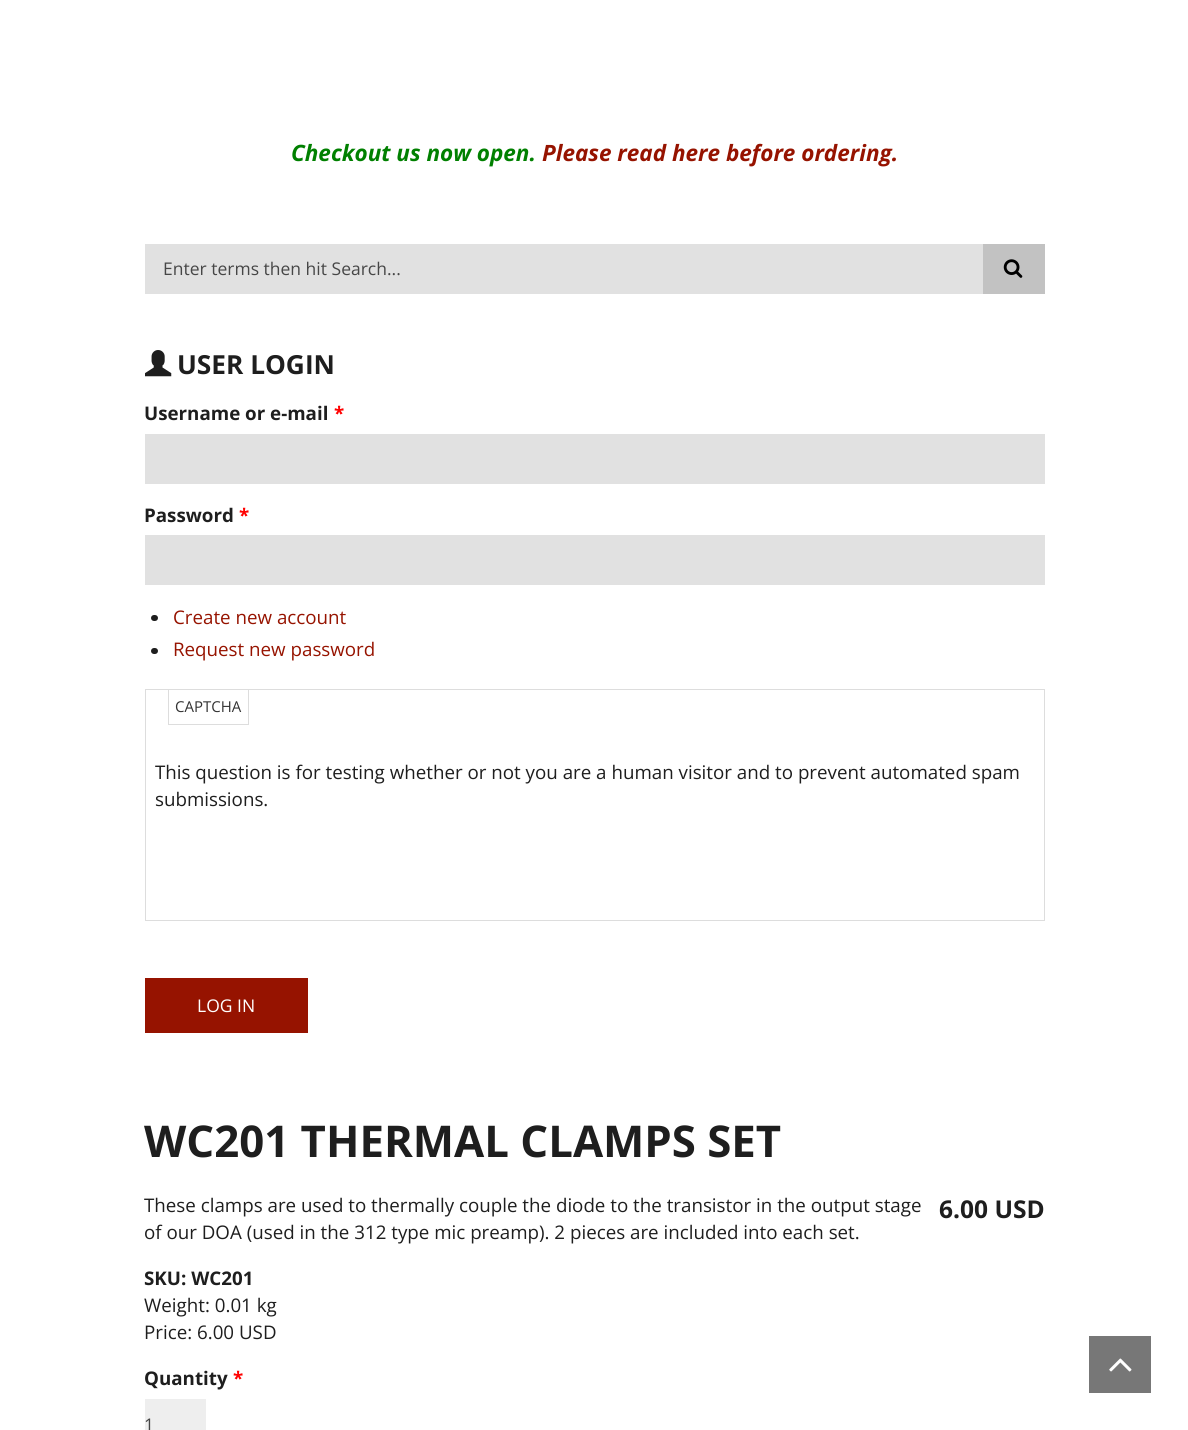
import math
import cairocffi as cairo

surface = cairo.ImageSurface(cairo.FORMAT_RGB24, 1188, 1430)
ctx = cairo.Context(surface)
options = cairo.FontOptions()
options.set_hint_metrics(cairo.HINT_METRICS_OFF)
options.set_hint_style(cairo.HINT_STYLE_NONE)
ctx.set_font_options(options)
ctx.set_miter_limit(4)


def rgb(r, g, b):
    ctx.set_source_rgb(r / 255, g / 255, b / 255)


def face(family, size, italic, bold):
    ctx.select_font_face(family, cairo.FONT_SLANT_ITALIC if italic else cairo.FONT_SLANT_NORMAL, cairo.FONT_WEIGHT_BOLD if bold else cairo.FONT_WEIGHT_NORMAL)
    ctx.set_font_size(size)


def label(x, y, s):
    ctx.move_to(x, y)
    ctx.show_text(s)


def rect(x, y, w, h):
    ctx.rectangle(x, y, w, h)
    ctx.fill()


def rrect(x, y, w, h, r):
    ctx.new_sub_path()
    for i, (u, v) in enumerate([(x + w - r, y + h - r), (x + r, y + h - r), (x + r, y + r), (x + w - r, y + r)]):
        ctx.arc(u, v, r, i * math.pi / 2, (i + 1) * math.pi / 2)
    ctx.close_path()


def image(path, x, y, w, h):
    ctx.save()
    ctx.set_source_surface(cairo.ImageSurface.create_from_png(path), x, y)
    ctx.rectangle(x, y, w, h)
    ctx.fill()
    ctx.restore()


rgb(255, 255, 255)
ctx.paint()
face('Open Sans', 22.5, 1, 1)
rgb(0, 128, 0)
label(291, 161, 'Checkout us now open.')
rgb(150, 19, 0)
label(542, 161, 'Please read here before ordering.')
rgb(225, 225, 225)
rect(145, 244, 838, 50)
face('Open Sans', 17.5, 0, 0)
rgb(70, 70, 70)
label(163, 275, 'Enter terms then hit Search...')
rgb(194, 194, 194)
rect(983, 244, 62, 50)
image('image0.png', 1003, 259, 20, 19)
image('image1.png', 145, 350, 27, 27)
face('Open Sans', 26.25, 0, 1)
rgb(30, 30, 30)
label(177, 374, 'USER LOGIN')
face('Open Sans', 18.75, 0, 1)
label(144, 420, 'Username or e-mail')
rgb(255, 0, 0)
label(334, 420, '*')
rgb(225, 225, 225)
rect(145, 434, 900, 50)
rgb(30, 30, 30)
label(144, 522, 'Password')
rgb(255, 0, 0)
label(239, 522, '*')
rgb(225, 225, 225)
rect(145, 535, 900, 50)
rgb(30, 30, 30)
rrect(151, 615, 7, 6, 3)
ctx.fill()
face('Open Sans', 18.75, 0, 0)
rgb(150, 19, 0)
label(173, 624, 'Create new account')
rgb(30, 30, 30)
rrect(151, 648, 7, 6, 3)
ctx.fill()
rgb(150, 19, 0)
label(173, 656, 'Request new password')
ctx.rectangle(145.5, 689.5, 899, 231)
rgb(221, 221, 221)
ctx.set_line_width(1)
ctx.stroke()
ctx.rectangle(168.5, 689.5, 80, 35)
ctx.stroke()
face('Open Sans', 15, 0, 0)
rgb(51, 51, 51)
label(175, 712, 'CAPTCHA')
face('Open Sans', 18.75, 0, 0)
rgb(30, 30, 30)
label(155, 779, 'This question is for testing whether or not you are a human visitor and to prevent automated spam')
label(155, 806, 'submissions.')
rgb(150, 19, 0)
rect(145, 978, 163, 55)
face('Open Sans', 17.5, 0, 0)
rgb(255, 255, 255)
label(197, 1012, 'LOG IN')
face('Open Sans', 43.75, 0, 1)
rgb(30, 30, 30)
label(144, 1157, 'WC201 THERMAL CLAMPS SET')
face('Open Sans', 18.75, 0, 0)
label(144, 1212, 'These clamps are used to thermally couple the diode to the transistor in the output stage')
label(144, 1239, 'of our DOA (used in the 312 type mic preamp). 2 pieces are included into each set.')
face('Open Sans', 24.5, 0, 1)
label(939, 1218, '6.00 USD')
face('Open Sans', 18.75, 0, 1)
label(144, 1285, 'SKU: WC201')
face('Open Sans', 18.75, 0, 0)
label(144, 1312, 'Weight: 0.01 kg')
label(144, 1339, 'Price: 6.00 USD')
face('Open Sans', 18.75, 0, 1)
label(144, 1385, 'Quantity')
rgb(255, 0, 0)
label(233, 1385, '*')
rgb(238, 238, 238)
rect(145, 1399, 61, 31)
face('Open Sans', 17.5, 0, 0)
rgb(70, 70, 70)
label(144, 1431, '1')
rgb(119, 119, 119)
rect(1089, 1336, 62, 57)
image('image2.png', 1109, 1358, 23, 14)
surface.write_to_png('render.png')
